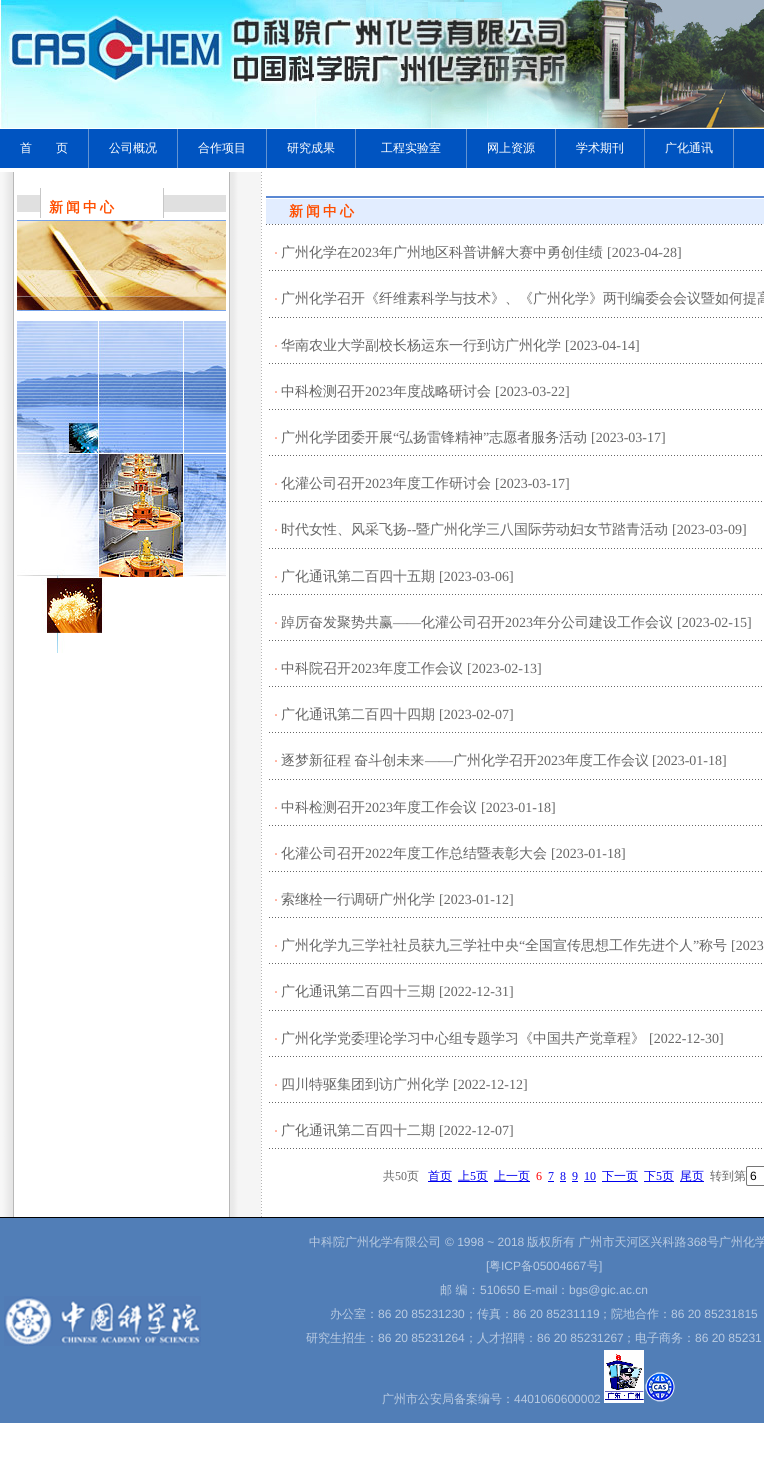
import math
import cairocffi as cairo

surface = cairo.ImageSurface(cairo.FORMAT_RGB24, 764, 1467)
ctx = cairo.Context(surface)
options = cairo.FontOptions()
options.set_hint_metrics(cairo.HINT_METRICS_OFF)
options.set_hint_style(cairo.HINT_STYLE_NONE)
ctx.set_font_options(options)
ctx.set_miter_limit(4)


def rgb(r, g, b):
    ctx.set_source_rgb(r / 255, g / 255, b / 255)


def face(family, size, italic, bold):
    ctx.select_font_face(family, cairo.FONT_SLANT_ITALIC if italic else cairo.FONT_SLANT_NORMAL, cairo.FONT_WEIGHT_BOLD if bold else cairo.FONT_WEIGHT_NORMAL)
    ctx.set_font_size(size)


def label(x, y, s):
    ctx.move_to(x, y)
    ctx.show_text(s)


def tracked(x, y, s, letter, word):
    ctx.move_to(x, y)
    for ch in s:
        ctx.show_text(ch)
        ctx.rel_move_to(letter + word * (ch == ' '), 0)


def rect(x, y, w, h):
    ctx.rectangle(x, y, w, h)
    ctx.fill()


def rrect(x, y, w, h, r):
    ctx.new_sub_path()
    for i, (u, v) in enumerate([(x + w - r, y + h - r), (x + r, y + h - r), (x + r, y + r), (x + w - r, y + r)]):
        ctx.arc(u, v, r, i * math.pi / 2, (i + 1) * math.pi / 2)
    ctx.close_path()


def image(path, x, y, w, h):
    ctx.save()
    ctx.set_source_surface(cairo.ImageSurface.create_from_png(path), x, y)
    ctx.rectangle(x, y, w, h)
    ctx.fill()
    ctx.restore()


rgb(255, 255, 255)
ctx.paint()
image('image0.png', 0, 0, 764, 128)
rgb(0, 84, 193)
rect(0, 129, 764, 39)
face('WenQuanYi Zen Hei Medium', 12, 0, 0)
rgb(255, 255, 255)
label(20, 152, '首　　页')
rgb(99, 147, 209)
rect(88, 129, 1, 39)
rgb(255, 255, 255)
label(109, 152, '公司概况')
rgb(99, 147, 209)
rect(177, 129, 1, 39)
rgb(255, 255, 255)
label(198, 152, '合作项目')
rgb(99, 147, 209)
rect(266, 129, 1, 39)
rgb(255, 255, 255)
label(287, 152, '研究成果')
rgb(99, 147, 209)
rect(355, 129, 1, 39)
rgb(255, 255, 255)
label(381, 152, '工程实验室')
rgb(99, 147, 209)
rect(466, 129, 1, 39)
rgb(255, 255, 255)
label(487, 152, '网上资源')
rgb(99, 147, 209)
rect(555, 129, 1, 39)
rgb(255, 255, 255)
label(576, 152, '学术期刊')
rgb(99, 147, 209)
rect(644, 129, 1, 39)
rgb(255, 255, 255)
label(665, 152, '广化通讯')
rgb(99, 147, 209)
rect(733, 129, 1, 39)
image('image1.png', 0, 172, 14, 1045)
image('image2.png', 17, 188, 209, 30)
face('WenQuanYi Zen Hei', 14, 0, 1)
rgb(255, 78, 0)
tracked(49, 212, '新闻中心', 3, 0)
image('image3.png', 17, 220, 209, 91)
image('image4.png', 17, 321, 209, 332)
image('image5.png', 229, 172, 33, 1045)
rgb(90, 136, 211)
rect(266, 196, 498, 2)
rgb(226, 237, 255)
rect(266, 199, 498, 25)
rgb(255, 78, 0)
tracked(289, 216, '新闻中心', 3, 0)
image('image6.png', 266, 224, 496, 1)
face('Liberation Serif', 12, 0, 0)
rgb(255, 51, 0)
label(274, 257, '·')
face('WenQuanYi Zen Hei Medium', 14, 0, 0)
rgb(102, 102, 102)
label(281, 257, '广州化学在')
face('Liberation Serif', 14, 0, 0)
label(351, 257, '2023')
face('WenQuanYi Zen Hei Medium', 14, 0, 0)
label(379, 257, '年广州地区科普讲解大赛中勇创佳绩')
face('Liberation Serif', 14, 0, 0)
label(607, 257, '[2023-04-28]')
image('image7.png', 269, 270, 493, 1)
face('Liberation Serif', 12, 0, 0)
rgb(255, 51, 0)
label(274, 303, '·')
face('WenQuanYi Zen Hei Medium', 14, 0, 0)
rgb(102, 102, 102)
label(281, 303, '广州化学召开《纤维素科学与技术》、《广州化学》两刊编委会会议暨如何提高')
image('image7.png', 269, 317, 493, 1)
face('Liberation Serif', 12, 0, 0)
rgb(255, 51, 0)
label(274, 350, '·')
face('WenQuanYi Zen Hei Medium', 14, 0, 0)
rgb(102, 102, 102)
label(281, 350, '华南农业大学副校长杨运东一行到访广州化学')
face('Liberation Serif', 14, 0, 0)
label(565, 350, '[2023-04-14]')
image('image7.png', 269, 363, 493, 1)
face('Liberation Serif', 12, 0, 0)
rgb(255, 51, 0)
label(274, 396, '·')
face('WenQuanYi Zen Hei Medium', 14, 0, 0)
rgb(102, 102, 102)
label(281, 396, '中科检测召开')
face('Liberation Serif', 14, 0, 0)
label(365, 396, '2023')
face('WenQuanYi Zen Hei Medium', 14, 0, 0)
label(393, 396, '年度战略研讨会')
face('Liberation Serif', 14, 0, 0)
label(495, 396, '[2023-03-22]')
image('image7.png', 269, 409, 493, 1)
face('Liberation Serif', 12, 0, 0)
rgb(255, 51, 0)
label(274, 442, '·')
face('WenQuanYi Zen Hei Medium', 14, 0, 0)
rgb(102, 102, 102)
label(281, 442, '广州化学团委开展')
face('Liberation Serif', 14, 0, 0)
label(393, 442, '“')
face('WenQuanYi Zen Hei Medium', 14, 0, 0)
label(399, 442, '弘扬雷锋精神')
face('Liberation Serif', 14, 0, 0)
label(483, 442, '”')
face('WenQuanYi Zen Hei Medium', 14, 0, 0)
label(489, 442, '志愿者服务活动')
face('Liberation Serif', 14, 0, 0)
label(591, 442, '[2023-03-17]')
image('image7.png', 269, 455, 493, 1)
face('Liberation Serif', 12, 0, 0)
rgb(255, 51, 0)
label(274, 488, '·')
face('WenQuanYi Zen Hei Medium', 14, 0, 0)
rgb(102, 102, 102)
label(281, 488, '化灌公司召开')
face('Liberation Serif', 14, 0, 0)
label(365, 488, '2023')
face('WenQuanYi Zen Hei Medium', 14, 0, 0)
label(393, 488, '年度工作研讨会')
face('Liberation Serif', 14, 0, 0)
label(495, 488, '[2023-03-17]')
image('image7.png', 269, 501, 493, 1)
face('Liberation Serif', 12, 0, 0)
rgb(255, 51, 0)
label(274, 534, '·')
face('WenQuanYi Zen Hei Medium', 14, 0, 0)
rgb(102, 102, 102)
label(281, 534, '时代女性、风采飞扬')
face('Liberation Serif', 14, 0, 0)
label(407, 534, '--')
face('WenQuanYi Zen Hei Medium', 14, 0, 0)
label(416, 534, '暨广州化学三八国际劳动妇女节踏青活动')
face('Liberation Serif', 14, 0, 0)
label(672, 534, '[2023-03-09]')
image('image7.png', 269, 548, 493, 1)
face('Liberation Serif', 12, 0, 0)
rgb(255, 51, 0)
label(274, 581, '·')
face('WenQuanYi Zen Hei Medium', 14, 0, 0)
rgb(102, 102, 102)
label(281, 581, '广化通讯第二百四十五期')
face('Liberation Serif', 14, 0, 0)
label(439, 581, '[2023-03-06]')
image('image7.png', 269, 594, 493, 1)
face('Liberation Serif', 12, 0, 0)
rgb(255, 51, 0)
label(274, 627, '·')
face('WenQuanYi Zen Hei Medium', 14, 0, 0)
rgb(102, 102, 102)
label(281, 627, '踔厉奋发聚势共赢')
face('Liberation Serif', 14, 0, 0)
label(393, 627, '——')
face('WenQuanYi Zen Hei Medium', 14, 0, 0)
label(421, 627, '化灌公司召开')
face('Liberation Serif', 14, 0, 0)
label(505, 627, '2023')
face('WenQuanYi Zen Hei Medium', 14, 0, 0)
label(533, 627, '年分公司建设工作会议')
face('Liberation Serif', 14, 0, 0)
label(677, 627, '[2023-02-15]')
image('image7.png', 269, 640, 493, 1)
face('Liberation Serif', 12, 0, 0)
rgb(255, 51, 0)
label(274, 673, '·')
face('WenQuanYi Zen Hei Medium', 14, 0, 0)
rgb(102, 102, 102)
label(281, 673, '中科院召开')
face('Liberation Serif', 14, 0, 0)
label(351, 673, '2023')
face('WenQuanYi Zen Hei Medium', 14, 0, 0)
label(379, 673, '年度工作会议')
face('Liberation Serif', 14, 0, 0)
label(467, 673, '[2023-02-13]')
image('image7.png', 269, 686, 493, 1)
face('Liberation Serif', 12, 0, 0)
rgb(255, 51, 0)
label(274, 719, '·')
face('WenQuanYi Zen Hei Medium', 14, 0, 0)
rgb(102, 102, 102)
label(281, 719, '广化通讯第二百四十四期')
face('Liberation Serif', 14, 0, 0)
label(439, 719, '[2023-02-07]')
image('image7.png', 269, 732, 493, 1)
face('Liberation Serif', 12, 0, 0)
rgb(255, 51, 0)
label(274, 765, '·')
face('WenQuanYi Zen Hei Medium', 14, 0, 0)
rgb(102, 102, 102)
tracked(281, 765, '逐梦新征程 奋斗创未来', 0, -1)
face('Liberation Serif', 14, 0, 0)
label(425, 765, '——')
face('WenQuanYi Zen Hei Medium', 14, 0, 0)
label(453, 765, '广州化学召开')
face('Liberation Serif', 14, 0, 0)
label(537, 765, '2023')
face('WenQuanYi Zen Hei Medium', 14, 0, 0)
label(565, 765, '年度工作会议')
face('Liberation Serif', 14, 0, 0)
label(652, 765, '[2023-01-18]')
image('image7.png', 269, 779, 493, 1)
face('Liberation Serif', 12, 0, 0)
rgb(255, 51, 0)
label(274, 812, '·')
face('WenQuanYi Zen Hei Medium', 14, 0, 0)
rgb(102, 102, 102)
label(281, 812, '中科检测召开')
face('Liberation Serif', 14, 0, 0)
label(365, 812, '2023')
face('WenQuanYi Zen Hei Medium', 14, 0, 0)
label(393, 812, '年度工作会议')
face('Liberation Serif', 14, 0, 0)
label(481, 812, '[2023-01-18]')
image('image7.png', 269, 825, 493, 1)
face('Liberation Serif', 12, 0, 0)
rgb(255, 51, 0)
label(274, 858, '·')
face('WenQuanYi Zen Hei Medium', 14, 0, 0)
rgb(102, 102, 102)
label(281, 858, '化灌公司召开')
face('Liberation Serif', 14, 0, 0)
label(365, 858, '2022')
face('WenQuanYi Zen Hei Medium', 14, 0, 0)
label(393, 858, '年度工作总结暨表彰大会')
face('Liberation Serif', 14, 0, 0)
label(551, 858, '[2023-01-18]')
image('image7.png', 269, 871, 493, 1)
face('Liberation Serif', 12, 0, 0)
rgb(255, 51, 0)
label(274, 904, '·')
face('WenQuanYi Zen Hei Medium', 14, 0, 0)
rgb(102, 102, 102)
label(281, 904, '索继栓一行调研广州化学')
face('Liberation Serif', 14, 0, 0)
label(439, 904, '[2023-01-12]')
image('image7.png', 269, 917, 493, 1)
face('Liberation Serif', 12, 0, 0)
rgb(255, 51, 0)
label(274, 950, '·')
face('WenQuanYi Zen Hei Medium', 14, 0, 0)
rgb(102, 102, 102)
label(281, 950, '广州化学九三学社社员获九三学社中央')
face('Liberation Serif', 14, 0, 0)
label(519, 950, '“')
face('WenQuanYi Zen Hei Medium', 14, 0, 0)
label(525, 950, '全国宣传思想工作先进个人')
face('Liberation Serif', 14, 0, 0)
label(693, 950, '”')
face('WenQuanYi Zen Hei Medium', 14, 0, 0)
label(699, 950, '称号')
face('Liberation Serif', 14, 0, 0)
label(731, 950, '[2023')
image('image7.png', 269, 963, 493, 1)
face('Liberation Serif', 12, 0, 0)
rgb(255, 51, 0)
label(274, 996, '·')
face('WenQuanYi Zen Hei Medium', 14, 0, 0)
rgb(102, 102, 102)
label(281, 996, '广化通讯第二百四十三期')
face('Liberation Serif', 14, 0, 0)
label(439, 996, '[2022-12-31]')
image('image7.png', 269, 1010, 493, 1)
face('Liberation Serif', 12, 0, 0)
rgb(255, 51, 0)
label(274, 1043, '·')
face('WenQuanYi Zen Hei Medium', 14, 0, 0)
rgb(102, 102, 102)
label(281, 1043, '广州化学党委理论学习中心组专题学习《中国共产党章程》')
face('Liberation Serif', 14, 0, 0)
label(649, 1043, '[2022-12-30]')
image('image7.png', 269, 1056, 493, 1)
face('Liberation Serif', 12, 0, 0)
rgb(255, 51, 0)
label(274, 1089, '·')
face('WenQuanYi Zen Hei Medium', 14, 0, 0)
rgb(102, 102, 102)
label(281, 1089, '四川特驱集团到访广州化学')
face('Liberation Serif', 14, 0, 0)
label(453, 1089, '[2022-12-12]')
image('image7.png', 269, 1102, 493, 1)
face('Liberation Serif', 12, 0, 0)
rgb(255, 51, 0)
label(274, 1135, '·')
face('WenQuanYi Zen Hei Medium', 14, 0, 0)
rgb(102, 102, 102)
label(281, 1135, '广化通讯第二百四十二期')
face('Liberation Serif', 14, 0, 0)
label(439, 1135, '[2022-12-07]')
image('image7.png', 269, 1148, 493, 1)
face('WenQuanYi Zen Hei Medium', 12, 0, 0)
label(383, 1180, '共')
face('Liberation Serif', 12, 0, 0)
label(395, 1180, '50')
face('WenQuanYi Zen Hei Medium', 12, 0, 0)
label(407, 1180, '页')
rgb(0, 0, 238)
rect(428, 1181, 24, 1)
label(428, 1180, '首页')
label(458, 1180, '上')
face('Liberation Serif', 12, 0, 0)
label(470, 1180, '5')
rect(458, 1181, 30, 1)
face('WenQuanYi Zen Hei Medium', 12, 0, 0)
label(476, 1180, '页')
rect(494, 1181, 36, 1)
label(494, 1180, '上一页')
face('Liberation Serif', 12, 0, 0)
rgb(255, 0, 0)
label(536, 1180, '6')
rgb(0, 0, 238)
label(548, 1180, '7')
rect(548, 1181, 6, 1)
label(560, 1180, '8')
rect(560, 1181, 6, 1)
label(572, 1180, '9')
rect(572, 1181, 6, 1)
label(584, 1180, '10')
rect(584, 1181, 12, 1)
rect(602, 1181, 36, 1)
face('WenQuanYi Zen Hei Medium', 12, 0, 0)
label(602, 1180, '下一页')
rect(644, 1181, 30, 1)
label(644, 1180, '下')
face('Liberation Serif', 12, 0, 0)
label(656, 1180, '5')
face('WenQuanYi Zen Hei Medium', 12, 0, 0)
label(662, 1180, '页')
rect(680, 1181, 24, 1)
label(680, 1180, '尾页')
rgb(102, 102, 102)
label(710, 1180, '转到第')
rrect(746.5, 1166.5, 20, 19, 1.5)
rgb(118, 118, 118)
ctx.set_line_width(1)
ctx.stroke()
face('Liberation Sans', 12, 0, 0)
rgb(0, 0, 0)
label(750, 1180, '6')
rect(0, 1217, 764, 1)
rgb(81, 126, 183)
rect(0, 1218, 764, 205)
image('image8.png', 4, 1296, 197, 50)
face('WenQuanYi Zen Hei Medium', 12, 0, 0)
rgb(185, 203, 226)
label(309, 1246, '中科院广州化学有限公司')
face('Liberation Sans', 12, 0, 0)
label(445, 1246, '© 1998 ~ 2018')
face('WenQuanYi Zen Hei Medium', 12, 0, 0)
label(527, 1246, '版权所有 广州市天河区兴科路')
face('Liberation Sans', 12, 0, 0)
label(687, 1246, '368')
face('WenQuanYi Zen Hei Medium', 12, 0, 0)
label(707, 1246, '号广州化学')
face('Liberation Sans', 12, 0, 0)
label(486, 1270, '[')
face('WenQuanYi Zen Hei Medium', 12, 0, 0)
label(489, 1270, '粤')
face('Liberation Sans', 12, 0, 0)
label(501, 1270, 'ICP')
face('WenQuanYi Zen Hei Medium', 12, 0, 0)
label(521, 1270, '备')
face('Liberation Sans', 12, 0, 0)
label(533, 1270, '05004667')
face('WenQuanYi Zen Hei Medium', 12, 0, 0)
label(587, 1270, '号')
face('Liberation Sans', 12, 0, 0)
label(599, 1270, ']')
face('WenQuanYi Zen Hei Medium', 12, 0, 0)
label(440, 1294, '邮 编：')
face('Liberation Sans', 12, 0, 0)
label(480, 1294, '510650 E-mail')
face('WenQuanYi Zen Hei Medium', 12, 0, 0)
label(557, 1294, '：')
face('Liberation Sans', 12, 0, 0)
label(569, 1294, 'bgs@gic.ac.cn')
face('WenQuanYi Zen Hei Medium', 12, 0, 0)
label(330, 1318, '办公室：')
face('Liberation Sans', 12, 0, 0)
label(378, 1318, '86 20 85231230')
face('WenQuanYi Zen Hei Medium', 12, 0, 0)
label(465, 1318, '；传真：')
face('Liberation Sans', 12, 0, 0)
label(513, 1318, '86 20 85231119')
face('WenQuanYi Zen Hei Medium', 12, 0, 0)
label(599, 1318, '；院地合作：')
face('Liberation Sans', 12, 0, 0)
label(671, 1318, '86 20 85231815')
face('WenQuanYi Zen Hei Medium', 12, 0, 0)
label(306, 1342, '研究生招生：')
face('Liberation Sans', 12, 0, 0)
label(378, 1342, '86 20 85231264')
face('WenQuanYi Zen Hei Medium', 12, 0, 0)
label(465, 1342, '；人才招聘：')
face('Liberation Sans', 12, 0, 0)
label(537, 1342, '86 20 85231267')
face('WenQuanYi Zen Hei Medium', 12, 0, 0)
label(623, 1342, '；电子商务：')
face('Liberation Sans', 12, 0, 0)
label(695, 1342, '86 20 85231')
face('WenQuanYi Zen Hei Medium', 12, 0, 0)
label(382, 1403, '广州市公安局备案编号：')
face('Liberation Sans', 12, 0, 0)
label(514, 1403, '4401060600002')
image('image9.png', 604, 1350, 40, 53)
image('image10.png', 645, 1372, 30, 30)
surface.write_to_png('render.png')
